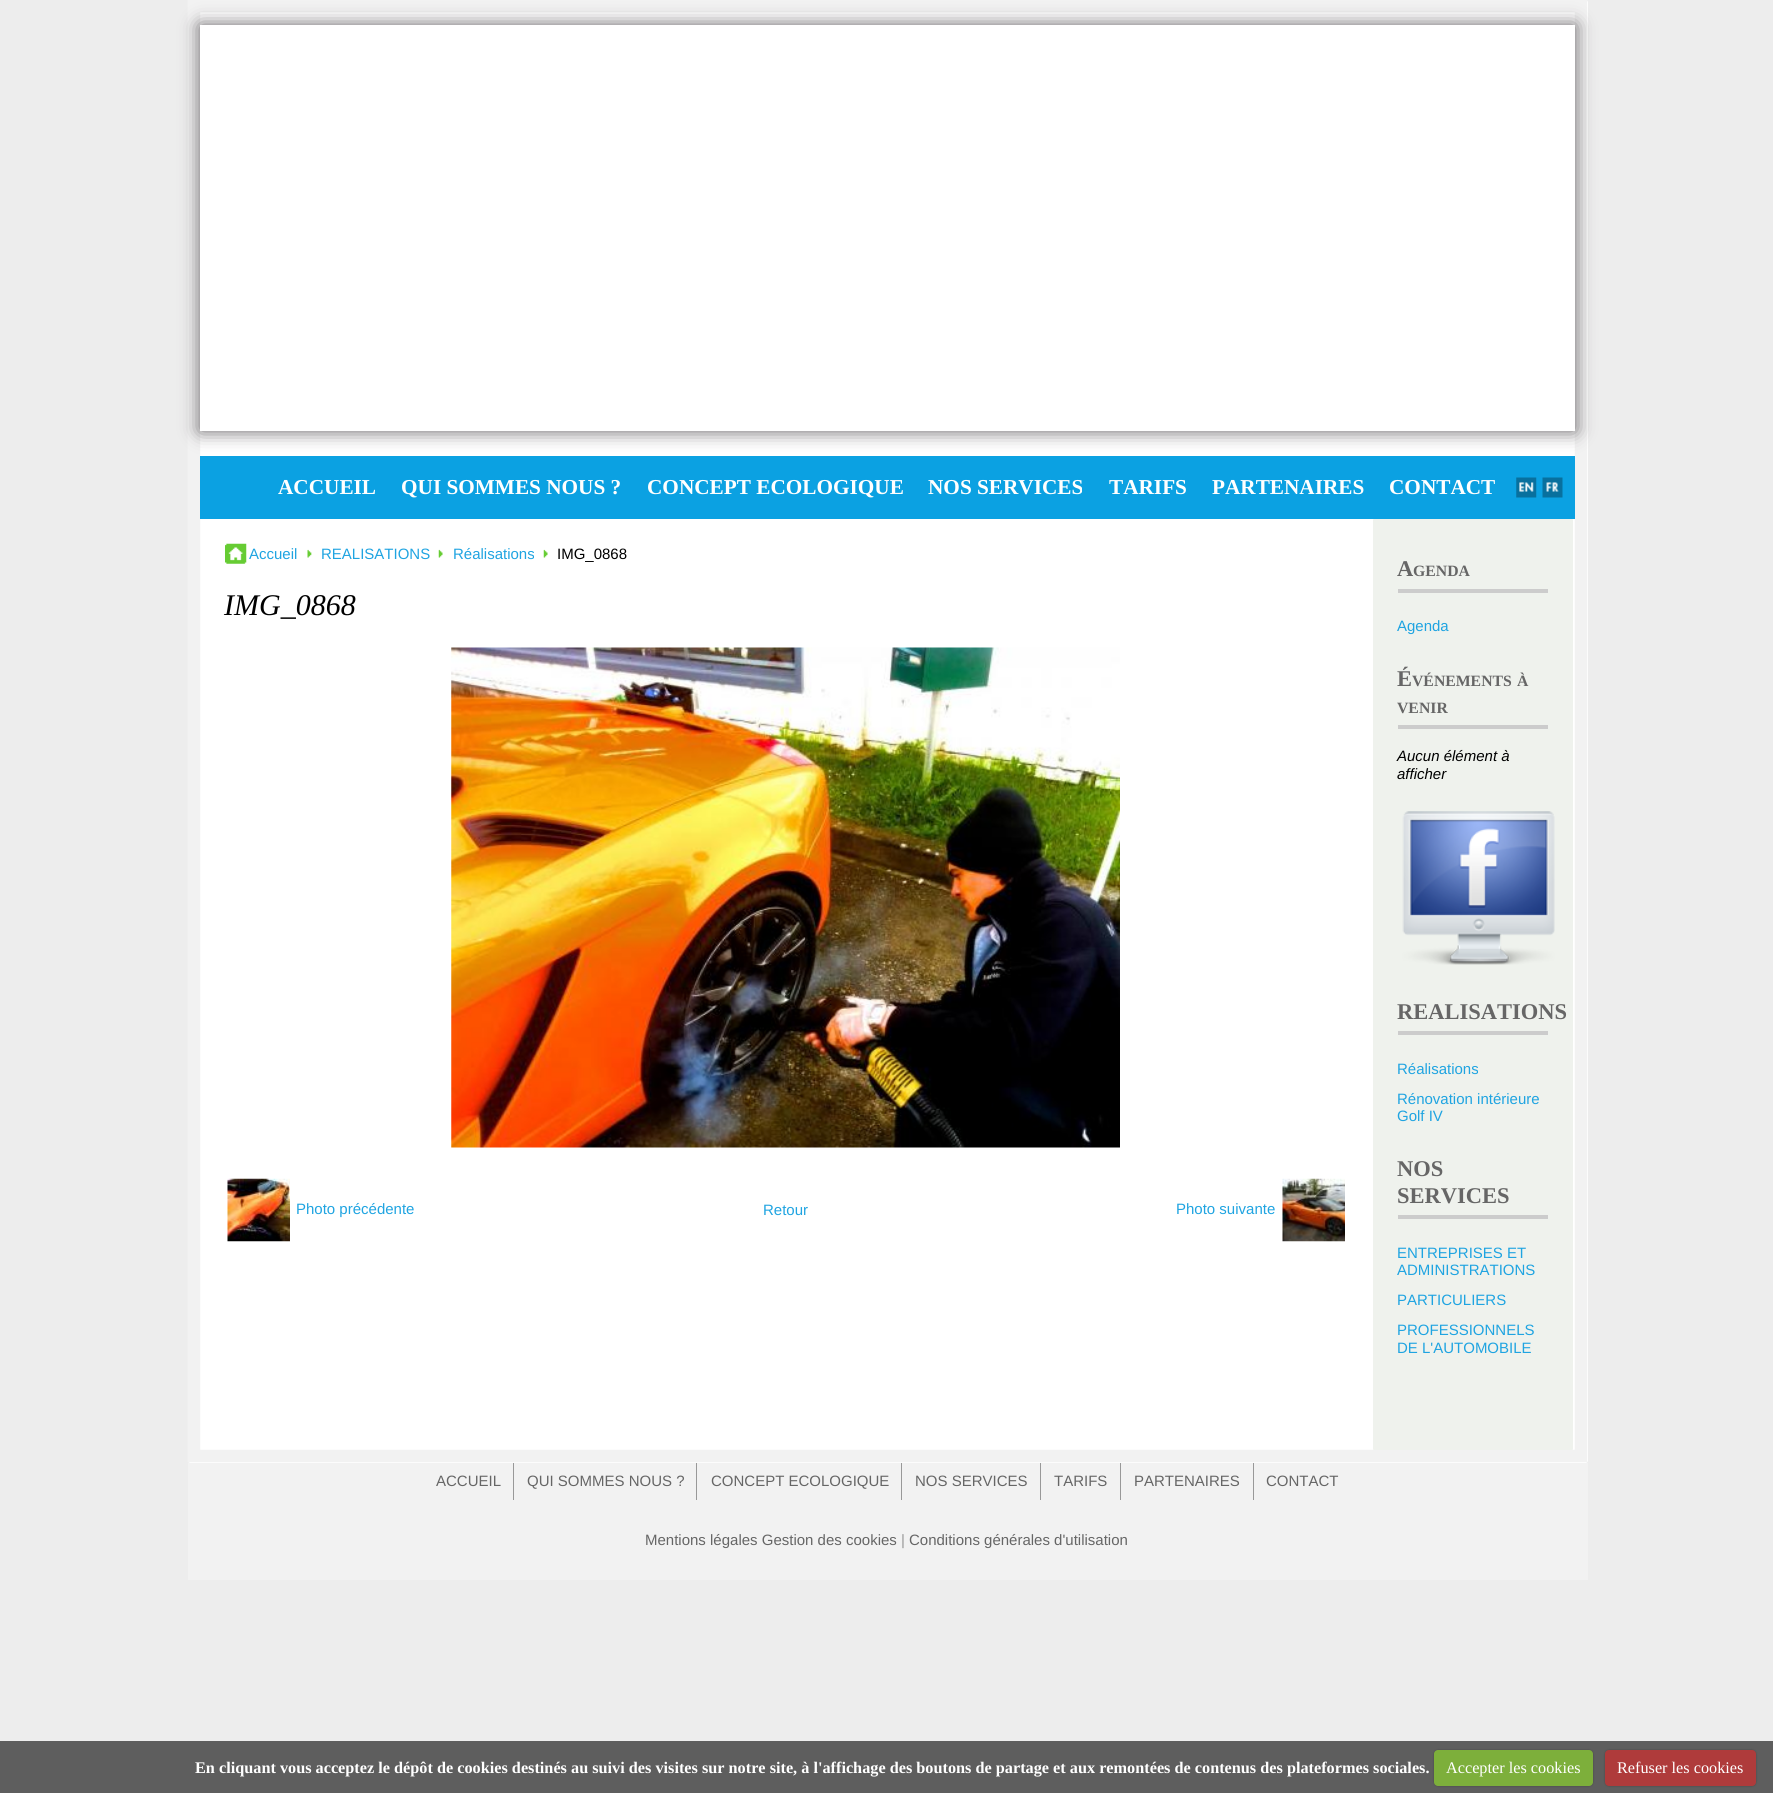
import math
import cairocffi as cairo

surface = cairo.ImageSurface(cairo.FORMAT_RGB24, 1773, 1793)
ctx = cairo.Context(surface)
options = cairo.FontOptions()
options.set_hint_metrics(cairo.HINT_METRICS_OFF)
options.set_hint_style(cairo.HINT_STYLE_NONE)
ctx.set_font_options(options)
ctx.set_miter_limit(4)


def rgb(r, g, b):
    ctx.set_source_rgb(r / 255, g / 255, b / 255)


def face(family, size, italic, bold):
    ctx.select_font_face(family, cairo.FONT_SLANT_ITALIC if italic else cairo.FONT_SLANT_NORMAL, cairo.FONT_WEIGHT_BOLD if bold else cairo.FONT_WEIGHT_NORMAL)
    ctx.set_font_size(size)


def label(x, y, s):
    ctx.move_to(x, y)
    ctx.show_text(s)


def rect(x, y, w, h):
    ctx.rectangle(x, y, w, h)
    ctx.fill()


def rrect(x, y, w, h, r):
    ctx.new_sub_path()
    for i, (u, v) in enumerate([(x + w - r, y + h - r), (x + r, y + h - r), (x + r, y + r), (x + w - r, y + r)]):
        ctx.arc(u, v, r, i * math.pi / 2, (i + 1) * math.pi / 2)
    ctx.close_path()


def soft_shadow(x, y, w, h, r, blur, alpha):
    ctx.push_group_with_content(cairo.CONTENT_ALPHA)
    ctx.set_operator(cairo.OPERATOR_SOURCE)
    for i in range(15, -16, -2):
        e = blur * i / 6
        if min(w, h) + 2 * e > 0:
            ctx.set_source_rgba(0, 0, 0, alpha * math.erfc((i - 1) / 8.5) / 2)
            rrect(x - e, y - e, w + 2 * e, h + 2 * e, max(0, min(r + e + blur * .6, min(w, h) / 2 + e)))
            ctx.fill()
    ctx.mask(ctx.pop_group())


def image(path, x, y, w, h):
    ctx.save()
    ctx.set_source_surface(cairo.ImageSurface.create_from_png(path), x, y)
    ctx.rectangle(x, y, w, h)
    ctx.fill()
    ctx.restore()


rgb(237, 237, 237)
ctx.paint()
rgb(255, 255, 255)
rrect(188, 0, 1400, 1463, 2.5)
ctx.fill()
ctx.new_path()
ctx.move_to(194, 6)
ctx.line_to(1581, 6)
ctx.line_to(1581, 1456)
ctx.line_to(194, 1456)
ctx.close_path()
rgb(242, 242, 242)
ctx.set_line_width(12.5)
ctx.stroke()
rgb(99, 95, 99)
soft_shadow(200, 25, 1375, 406, 0, 9.5, 1)
rgb(255, 255, 255)
rect(200, 25, 1375, 406)
rgb(11, 161, 226)
rect(200, 456, 1375, 63)
face('Liberation Serif', 21.25, 0, 1)
rgb(255, 255, 255)
label(278, 494, 'ACCUEIL')
label(401, 494, 'QUI SOMMES NOUS ?')
label(647, 494, 'CONCEPT ECOLOGIQUE')
label(928, 494, 'NOS SERVICES')
label(1109, 494, 'TARIFS')
label(1212, 494, 'PARTENAIRES')
label(1389, 494, 'CONTACT')
image('image0.png', 1516, 477, 21, 21)
image('image1.png', 1542, 477, 21, 21)
image('image2.png', 225, 543, 22, 21)
face('Liberation Sans', 15, 0, 0)
rgb(31, 164, 225)
label(249, 559, 'Accueil')
image('image3.png', 307, 549, 5, 9)
label(321, 559, 'REALISATIONS')
image('image4.png', 438, 549, 5, 9)
label(453, 559, 'Réalisations')
image('image4.png', 543, 549, 5, 9)
rgb(0, 0, 0)
label(557, 559, 'IMG_0868')
face('Liberation Serif', 30, 1, 0)
label(224, 615, 'IMG_0868')
image('image5.png', 451, 647, 669, 501)
image('image6.png', 227, 1178, 63, 64)
face('Liberation Sans', 15, 0, 0)
rgb(31, 164, 225)
label(296, 1214, 'Photo précédente')
label(763, 1215, 'Retour')
label(1176, 1214, 'Photo suivante')
image('image7.png', 1282, 1178, 63, 64)
rgb(239, 242, 237)
rrect(1373, 519, 200, 931, 1)
ctx.fill()
rgb(204, 204, 204)
rect(1398, 589, 150, 4)
face('Liberation Serif', 22.5, 0, 1)
rgb(102, 102, 102)
label(1397, 576, 'A')
face('Liberation Serif', 15.75, 0, 1)
label(1413, 576, 'GENDA')
face('Liberation Sans', 15, 0, 0)
rgb(31, 164, 225)
label(1397, 631, 'Agenda')
rgb(204, 204, 204)
rect(1398, 725, 150, 4)
face('Liberation Serif', 22.5, 0, 1)
rgb(102, 102, 102)
label(1397, 686, 'É')
face('Liberation Serif', 15.75, 0, 1)
label(1412, 686, 'VÉNEMENTS')
label(1517, 686, 'À')
label(1397, 713, 'VENIR')
face('Liberation Sans', 15, 1, 0)
rgb(0, 0, 0)
label(1397, 761, 'Aucun élément à')
label(1397, 779, 'afficher')
image('image8.png', 1402, 811, 153, 154)
rgb(204, 204, 204)
rect(1398, 1031, 150, 4)
face('Liberation Serif', 22.5, 0, 1)
rgb(102, 102, 102)
label(1397, 1019, 'REALISATIONS')
face('Liberation Sans', 15, 0, 0)
rgb(31, 164, 225)
label(1397, 1074, 'Réalisations')
label(1397, 1104, 'Rénovation intérieure')
label(1397, 1121, 'Golf IV')
rgb(204, 204, 204)
rect(1398, 1215, 150, 4)
face('Liberation Serif', 22.5, 0, 1)
rgb(102, 102, 102)
label(1397, 1176, 'NOS')
label(1397, 1203, 'SERVICES')
face('Liberation Sans', 15, 0, 0)
rgb(31, 164, 225)
label(1397, 1258, 'ENTREPRISES ET')
label(1397, 1275, 'ADMINISTRATIONS')
label(1397, 1305, 'PARTICULIERS')
label(1397, 1335, 'PROFESSIONNELS')
label(1397, 1353, 'DE L\'AUTOMOBILE')
rgb(242, 242, 242)
rect(188, 1463, 1400, 117)
rgb(153, 153, 153)
rect(513, 1463, 1, 37)
rgb(102, 102, 102)
label(436, 1486, 'ACCUEIL')
rgb(153, 153, 153)
rect(696, 1463, 1, 37)
rgb(102, 102, 102)
label(527, 1486, 'QUI SOMMES NOUS ?')
rgb(153, 153, 153)
rect(901, 1463, 1, 37)
rgb(102, 102, 102)
label(711, 1486, 'CONCEPT ECOLOGIQUE')
rgb(153, 153, 153)
rect(1040, 1463, 1, 37)
rgb(102, 102, 102)
label(915, 1486, 'NOS SERVICES')
rgb(153, 153, 153)
rect(1120, 1463, 1, 37)
rgb(102, 102, 102)
label(1054, 1486, 'TARIFS')
rgb(153, 153, 153)
rect(1253, 1463, 1, 37)
rgb(102, 102, 102)
label(1134, 1486, 'PARTENAIRES')
label(1266, 1486, 'CONTACT')
label(645, 1545, 'Mentions légales Gestion des cookies')
rgb(153, 153, 153)
label(901, 1545, '|')
rgb(102, 102, 102)
label(909, 1545, 'Conditions générales d\'utilisation')
rgb(94, 94, 94)
rect(0, 1741, 1773, 52)
face('Liberation Serif', 16.25, 0, 1)
rgb(255, 255, 255)
label(195, 1773, 'En cliquant vous acceptez le dépôt de cookies destinés au suivi des visites sur notre site, à l\'affichage des boutons de partage et aux remontées de contenus des plateformes sociales.')
rgb(0, 0, 0)
soft_shadow(1434, 1750, 159, 36, 4, 1, 0.25)
rgb(125, 175, 59)
rrect(1434, 1750, 159, 36, 4)
ctx.fill()
face('Liberation Serif', 16.25, 0, 0)
rgb(255, 255, 255)
label(1446, 1773, 'Accepter les cookies')
rgb(0, 0, 0)
soft_shadow(1605, 1750, 151, 36, 4, 1, 0.25)
rgb(175, 59, 59)
rrect(1605, 1750, 151, 36, 4)
ctx.fill()
rgb(255, 255, 255)
label(1617, 1773, 'Refuser les cookies')
surface.write_to_png('render.png')
